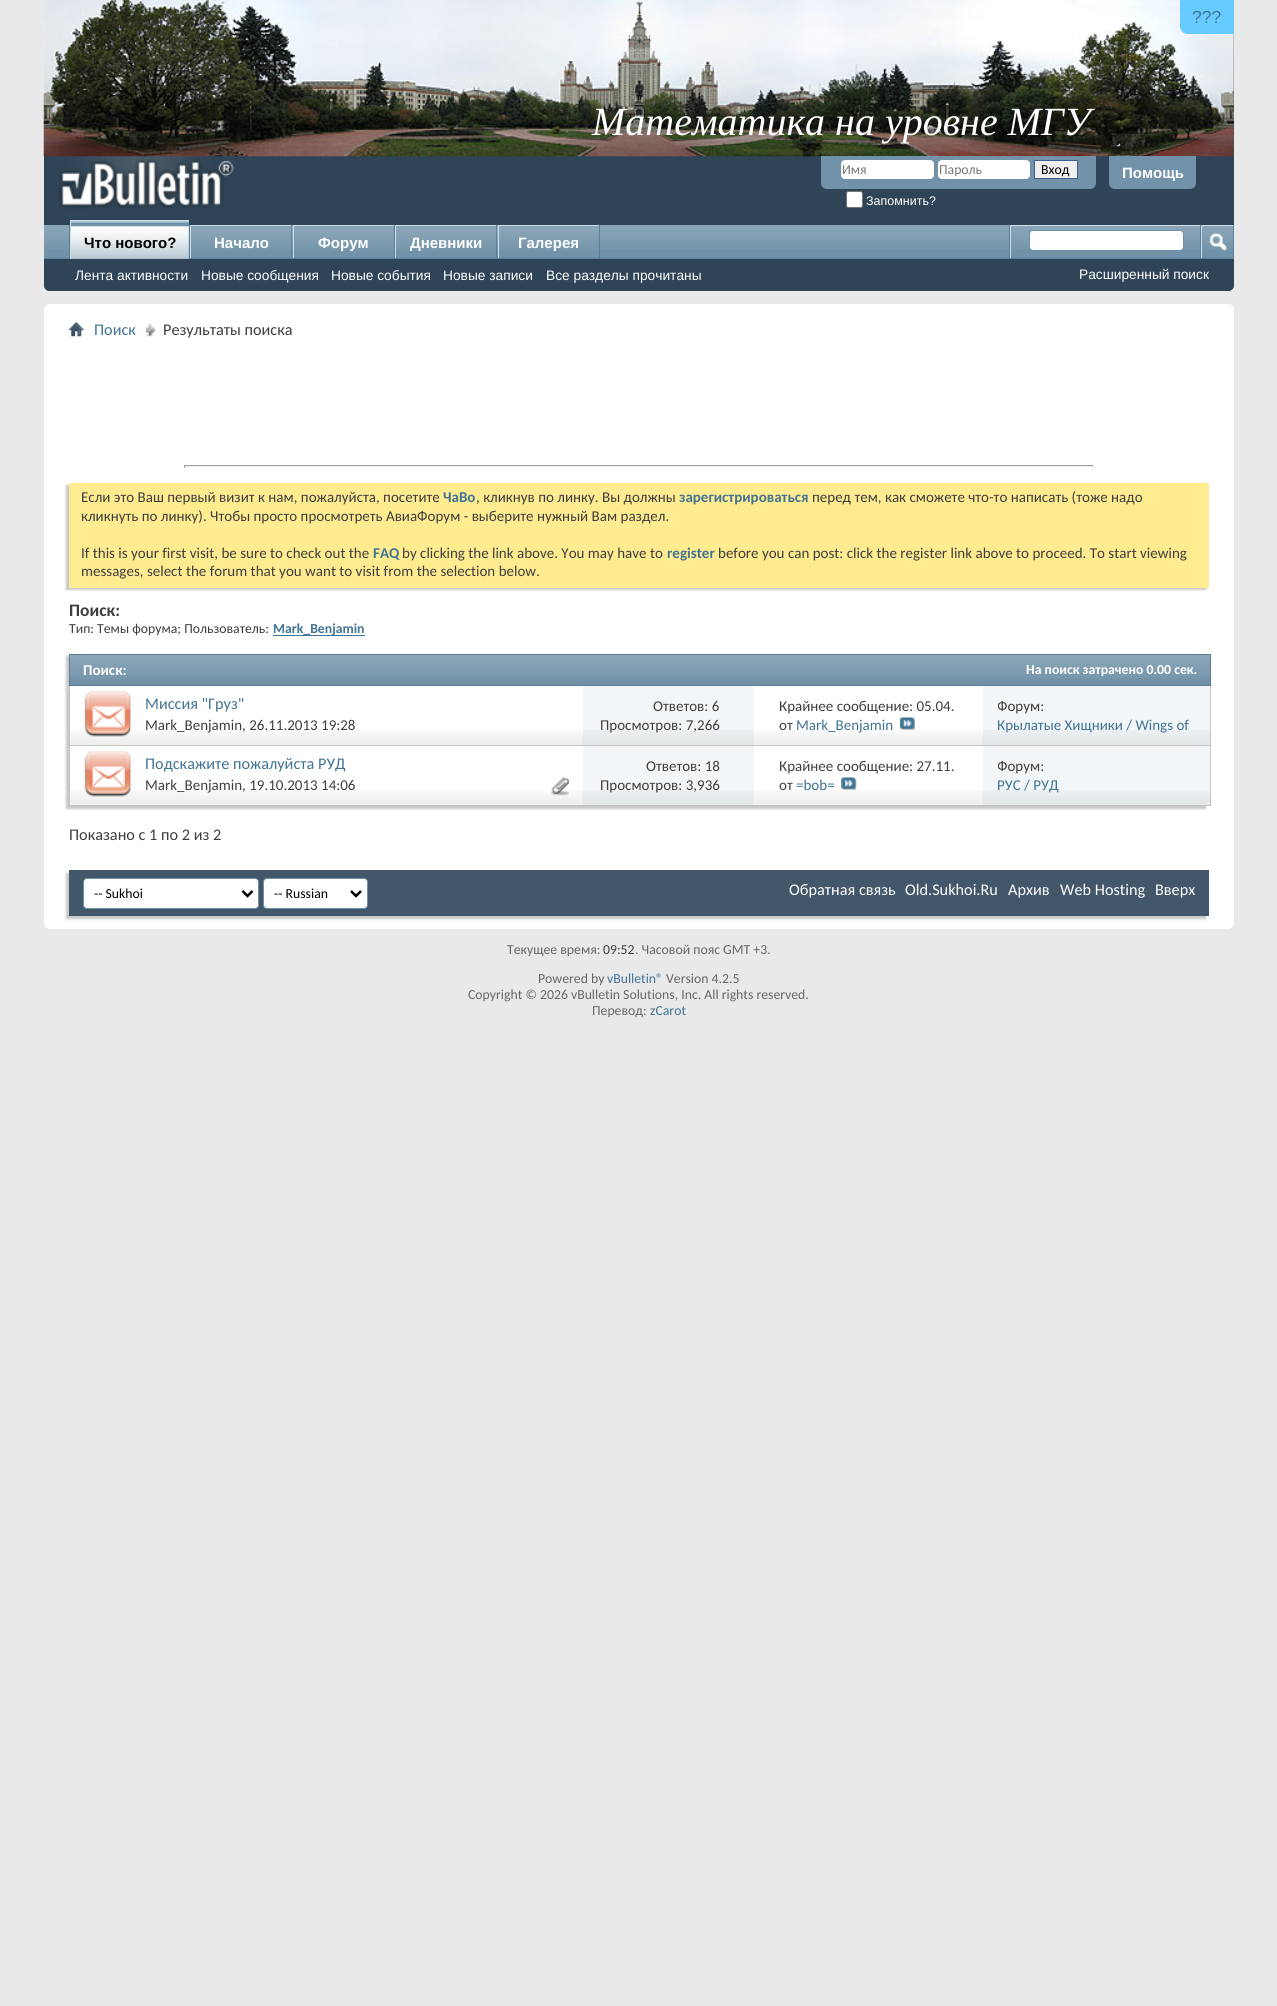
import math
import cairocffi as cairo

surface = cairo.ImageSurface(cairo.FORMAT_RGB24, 1277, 2006)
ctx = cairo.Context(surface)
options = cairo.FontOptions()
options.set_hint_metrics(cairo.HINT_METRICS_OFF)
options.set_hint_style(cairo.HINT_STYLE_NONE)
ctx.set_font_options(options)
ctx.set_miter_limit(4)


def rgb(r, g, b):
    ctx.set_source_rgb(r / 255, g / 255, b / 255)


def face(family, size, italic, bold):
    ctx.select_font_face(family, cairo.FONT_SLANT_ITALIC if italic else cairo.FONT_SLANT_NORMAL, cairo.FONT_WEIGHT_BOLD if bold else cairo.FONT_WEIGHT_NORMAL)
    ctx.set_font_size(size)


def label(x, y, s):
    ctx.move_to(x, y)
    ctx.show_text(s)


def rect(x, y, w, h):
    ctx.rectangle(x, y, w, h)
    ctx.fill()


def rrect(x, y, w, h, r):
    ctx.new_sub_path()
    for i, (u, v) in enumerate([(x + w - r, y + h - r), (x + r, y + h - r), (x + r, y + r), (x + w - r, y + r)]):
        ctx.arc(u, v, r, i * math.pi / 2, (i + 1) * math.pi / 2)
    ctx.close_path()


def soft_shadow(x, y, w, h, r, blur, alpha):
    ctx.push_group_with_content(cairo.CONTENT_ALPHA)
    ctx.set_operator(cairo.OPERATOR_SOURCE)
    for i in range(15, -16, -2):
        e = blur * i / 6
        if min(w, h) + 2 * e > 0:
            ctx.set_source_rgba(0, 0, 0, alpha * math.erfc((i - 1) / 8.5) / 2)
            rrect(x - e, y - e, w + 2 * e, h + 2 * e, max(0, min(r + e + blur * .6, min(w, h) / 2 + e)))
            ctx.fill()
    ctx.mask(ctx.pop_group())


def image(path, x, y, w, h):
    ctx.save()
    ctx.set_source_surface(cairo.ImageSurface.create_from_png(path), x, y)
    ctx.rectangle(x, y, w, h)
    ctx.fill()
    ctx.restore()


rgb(233, 233, 233)
ctx.paint()
rgb(47, 68, 86)
ctx.new_path()
ctx.move_to(44, 0)
ctx.line_to(1234, 0)
ctx.line_to(1234, 285)
ctx.curve_to(1234, 288.5, 1231.5, 291, 1228, 291)
ctx.line_to(50, 291)
ctx.curve_to(46.5, 291, 44, 288.5, 44, 285)
ctx.close_path()
ctx.fill()
image('image0.png', 43, 0, 1191, 157)
rgb(102, 204, 255)
ctx.new_path()
ctx.move_to(1180, 0)
ctx.line_to(1234, 0)
ctx.line_to(1234, 34)
ctx.line_to(1188, 34)
ctx.curve_to(1183.5, 34, 1180, 30.5, 1180, 26)
ctx.close_path()
ctx.fill()
face('Liberation Sans', 17.5, 0, 0)
rgb(65, 115, 148)
label(1192, 23, '???')
face('Liberation Serif', 40, 1, 0)
rgb(255, 255, 255)
label(592, 135, 'Математика на уровне МГУ')
image('image1.png', 59, 156, 175, 53)
rgb(113, 146, 168)
ctx.new_path()
ctx.move_to(821, 156)
ctx.line_to(1096, 156)
ctx.line_to(1096, 183)
ctx.curve_to(1096, 186.5, 1093.5, 189, 1090, 189)
ctx.line_to(827, 189)
ctx.curve_to(823.5, 189, 821, 186.5, 821, 183)
ctx.close_path()
ctx.fill()
rgb(255, 255, 255)
rrect(841, 160, 93, 19, 4)
ctx.fill()
face('Carlito', 13.75, 0, 0)
rgb(119, 119, 119)
label(842, 174, 'Имя')
rgb(255, 255, 255)
rrect(938, 160, 92, 19, 4)
ctx.fill()
rgb(119, 119, 119)
label(939, 174, 'Пароль')
rgb(239, 239, 239)
ctx.rectangle(1034.5, 160.5, 43, 18)
ctx.fill_preserve()
rgb(65, 93, 141)
ctx.set_line_width(1)
ctx.stroke()
rgb(0, 0, 0)
label(1041, 174, 'Вход')
rgb(255, 255, 255)
rrect(846.5, 191.5, 16, 16, 2)
ctx.fill_preserve()
rgb(118, 118, 118)
ctx.stroke()
face('Liberation Sans', 12.5, 0, 0)
rgb(255, 255, 255)
label(866, 205, 'Запомнить?')
rgb(113, 146, 168)
ctx.new_path()
ctx.move_to(1109, 156)
ctx.line_to(1196, 156)
ctx.line_to(1196, 183)
ctx.curve_to(1196, 186.5, 1193.5, 189, 1190, 189)
ctx.line_to(1115, 189)
ctx.curve_to(1111.5, 189, 1109, 186.5, 1109, 183)
ctx.close_path()
ctx.fill()
face('Liberation Sans', 15, 0, 1)
rgb(255, 255, 255)
label(1122, 178, 'Помощь')
rgb(47, 68, 86)
ctx.new_path()
ctx.move_to(44, 225)
ctx.line_to(1234, 225)
ctx.line_to(1234, 285)
ctx.curve_to(1234, 288.5, 1231.5, 291, 1228, 291)
ctx.line_to(50, 291)
ctx.curve_to(46.5, 291, 44, 288.5, 44, 285)
ctx.close_path()
ctx.fill()
rgb(113, 146, 168)
rect(44, 225, 1189, 33)
image('image2.png', 44, 225, 1189, 24)
rgb(90, 127, 151)
rect(189, 225, 1, 33)
rect(69, 225, 1, 33)
rect(291, 225, 1, 34)
rgb(206, 223, 235)
rect(190, 225, 101, 1)
rect(190, 225, 1, 34)
rgb(90, 127, 151)
rect(394, 225, 1, 34)
rgb(113, 146, 168)
rect(294, 226, 100, 23)
image('image5.png', 292, 226, 102, 25)
rgb(206, 223, 235)
rect(293, 225, 101, 1)
rect(293, 225, 1, 34)
rgb(90, 127, 151)
rect(496, 225, 1, 34)
rgb(206, 223, 235)
rect(395, 225, 101, 1)
rect(395, 225, 1, 34)
rgb(90, 127, 151)
rect(599, 225, 1, 34)
rgb(113, 146, 168)
rect(499, 226, 100, 23)
image('image5.png', 497, 226, 102, 25)
rgb(206, 223, 235)
rect(498, 225, 101, 1)
rect(498, 225, 1, 34)
rgb(90, 127, 151)
rect(44, 258, 1190, 1)
rgb(113, 146, 168)
rect(71, 221, 118, 38)
image('image3.png', 71, 221, 118, 38)
rgb(206, 223, 235)
rect(70, 220, 119, 1)
rect(70, 220, 1, 39)
rgb(0, 0, 0)
label(84, 248, 'Что нового?')
rgb(113, 146, 168)
rect(191, 226, 100, 23)
image('image4.png', 191, 226, 101, 25)
rgb(255, 255, 255)
label(214, 248, 'Начало')
label(318, 248, 'Форум')
rgb(113, 146, 168)
rect(396, 226, 100, 23)
image('image4.png', 396, 226, 101, 25)
rgb(255, 255, 255)
label(410, 248, 'Дневники')
label(518, 248, 'Галерея')
face('Liberation Sans', 13.75, 0, 0)
label(75, 280, 'Лента активности')
label(201, 280, 'Новые сообщения')
label(331, 280, 'Новые события')
label(443, 280, 'Новые записи')
label(546, 280, 'Все разделы прочитаны')
rgb(90, 127, 151)
rect(1009, 225, 1, 33)
rgb(206, 223, 235)
rect(1010, 225, 190, 1)
rect(1010, 225, 1, 33)
rgb(255, 255, 255)
rrect(1029.5, 230.5, 154, 20, 3.5)
ctx.fill_preserve()
rgb(107, 145, 171)
ctx.stroke()
rgb(90, 127, 151)
rect(1233, 225, 1, 33)
rect(1200, 225, 1, 33)
rgb(206, 223, 235)
rect(1201, 225, 32, 1)
rect(1201, 225, 1, 33)
image('image6.png', 1209, 233, 18, 18)
rgb(255, 255, 255)
label(1079, 279, 'Расширенный поиск')
rrect(44, 304, 1190, 625, 6)
ctx.fill()
image('image7.png', 68, 322, 16, 15)
image('image8.png', 146, 323, 9, 14)
face('Carlito', 16.25, 0, 0)
rgb(65, 115, 148)
label(94, 335, 'Поиск')
rgb(62, 62, 62)
label(163, 335, 'Результаты поиска')
rgb(159, 159, 159)
rect(184, 465, 910, 1)
rgb(238, 238, 238)
rect(1093, 465, 1, 3)
rect(184, 466, 910, 1)
rgb(159, 159, 159)
rect(184, 465, 1, 3)
rgb(200, 200, 200)
soft_shadow(66, 485, 1140, 105, 0, 1, 1)
rgb(255, 235, 144)
rect(69, 483, 1140, 105)
face('Carlito', 15, 0, 0)
rgb(62, 62, 62)
label(81, 502, 'Если это Ваш первый визит к нам, пожалуйста, посетите')
face('Carlito', 15, 0, 1)
rgb(65, 115, 148)
label(443, 502, 'ЧаВо')
face('Carlito', 15, 0, 0)
rgb(62, 62, 62)
label(476, 502, ', кликнув по линку. Вы должны')
face('Carlito', 15, 0, 1)
rgb(65, 115, 148)
label(679, 502, 'зарегистрироваться')
face('Carlito', 15, 0, 0)
rgb(62, 62, 62)
label(812, 502, 'перед тем, как сможете что-то написать (тоже надо')
label(81, 521, 'кликнуть по линку). Чтобы просто просмотреть АвиаФорум - выберите нужный Вам раздел.')
label(81, 558, 'If this is your first visit, be sure to check out the')
face('Carlito', 15, 0, 1)
rgb(65, 115, 148)
label(373, 558, 'FAQ')
face('Carlito', 15, 0, 0)
rgb(62, 62, 62)
label(402, 558, 'by clicking the link above. You may have to')
face('Carlito', 15, 0, 1)
rgb(65, 115, 148)
label(667, 558, 'register')
face('Carlito', 15, 0, 0)
rgb(62, 62, 62)
label(718, 558, 'before you can post: click the register link above to proceed. To start viewing')
label(81, 576, 'messages, select the forum that you want to visit from the selection below.')
face('Carlito', 17.5, 0, 1)
label(69, 616, 'Поиск:')
face('Carlito', 13.75, 0, 0)
label(69, 633, 'Тип: Темы форума; Пользователь:')
rgb(65, 115, 148)
rect(273, 635, 92, 1)
face('Carlito', 13.75, 0, 1)
label(273, 633, 'Mark_Benjamin')
rgb(200, 200, 200)
soft_shadow(66, 656, 1143, 33, 0, 1, 1)
rgb(113, 146, 168)
rect(70, 655, 1140, 30)
image('image9.png', 70, 655, 1140, 24)
ctx.rectangle(69.5, 654.5, 1141, 31)
rgb(90, 127, 151)
ctx.stroke()
face('Carlito', 15, 0, 1)
rgb(255, 255, 255)
label(83, 675, 'Поиск:')
face('Carlito', 13.75, 0, 1)
label(1026, 674, 'На поиск затрачено 0.00 сек.')
rgb(200, 200, 200)
soft_shadow(66, 689, 1140, 60, 0, 1, 1)
rgb(255, 255, 255)
rect(70, 686, 913, 59)
image('image10.png', 70, 730, 913, 15)
rgb(196, 196, 196)
rect(1210, 686, 1, 120)
rect(69, 745, 1142, 1)
rect(69, 686, 1, 60)
image('image11.png', 84, 691, 48, 46)
face('Carlito', 16.25, 0, 0)
rgb(65, 115, 148)
label(145, 709, 'Миссия "Груз"')
face('Carlito', 15, 0, 0)
rgb(62, 62, 62)
label(145, 730, 'Mark_Benjamin, 26.11.2013 19:28')
rgb(242, 246, 248)
rect(583, 686, 171, 59)
image('image12.png', 582, 730, 172, 15)
rgb(62, 62, 62)
label(653, 711, 'Ответов: 6')
label(600, 730, 'Просмотров: 7,266')
label(779, 711, 'Крайнее сообщение: 05.04.')
label(779, 730, 'от')
rgb(65, 115, 148)
label(796, 730, 'Mark_Benjamin')
image('image13.png', 900, 717, 15, 13)
rgb(242, 246, 248)
rect(983, 686, 227, 59)
image('image14.png', 982, 730, 228, 15)
ctx.save()
ctx.rectangle(998, 698, 212, 37)
ctx.clip()
rgb(62, 62, 62)
label(997, 711, 'Форум:')
ctx.restore()
rgb(65, 115, 148)
label(997, 730, 'Крылатые Хищники / Wings of')
rgb(200, 200, 200)
soft_shadow(66, 749, 1140, 60, 0, 1, 1)
rgb(255, 255, 255)
rect(70, 746, 913, 59)
image('image15.png', 70, 790, 913, 15)
rgb(196, 196, 196)
rect(69, 805, 1142, 1)
rect(69, 746, 1, 60)
image('image16.png', 84, 751, 48, 46)
face('Carlito', 16.25, 0, 0)
rgb(65, 115, 148)
label(145, 769, 'Подскажите пожалуйста РУД')
face('Carlito', 15, 0, 0)
rgb(62, 62, 62)
label(145, 790, 'Mark_Benjamin, 19.10.2013 14:06')
image('image17.png', 551, 777, 18, 19)
rgb(242, 246, 248)
rect(583, 746, 171, 59)
image('image18.png', 582, 790, 172, 15)
rgb(62, 62, 62)
label(646, 771, 'Ответов: 18')
label(600, 790, 'Просмотров: 3,936')
label(779, 771, 'Крайнее сообщение: 27.11.')
label(779, 790, 'от')
rgb(65, 115, 148)
label(796, 790, '=bob=')
image('image19.png', 841, 777, 16, 13)
rgb(242, 246, 248)
rect(983, 746, 227, 59)
image('image20.png', 982, 790, 228, 15)
ctx.save()
ctx.rectangle(998, 758, 61, 37)
ctx.clip()
rgb(62, 62, 62)
label(997, 771, 'Форум:')
ctx.restore()
rgb(65, 115, 148)
label(997, 790, 'РУС / РУД')
face('Carlito', 16.25, 0, 0)
rgb(62, 62, 62)
label(69, 840, 'Показано с 1 по 2 из 2')
rgb(200, 200, 200)
soft_shadow(66, 873, 1140, 46, 0, 1, 1)
rgb(66, 87, 105)
rect(69, 870, 1140, 46)
rgb(255, 255, 255)
rrect(83.5, 878.5, 175, 30, 3.5)
ctx.fill_preserve()
rgb(107, 145, 171)
ctx.stroke()
ctx.new_path()
ctx.move_to(242.5, 891)
ctx.line_to(247.5, 896)
ctx.line_to(252.5, 891)
rgb(0, 0, 0)
ctx.set_line_width(2.5)
ctx.stroke()
face('Carlito', 13.75, 0, 0)
label(94, 898, '-- Sukhoi')
rgb(255, 255, 255)
rrect(263.5, 878.5, 104, 30, 3.5)
ctx.fill_preserve()
rgb(107, 145, 171)
ctx.set_line_width(1)
ctx.stroke()
ctx.new_path()
ctx.move_to(351, 891)
ctx.line_to(356, 896)
ctx.line_to(361, 891)
rgb(0, 0, 0)
ctx.set_line_width(2.5)
ctx.stroke()
label(274, 898, '-- Russian')
face('Carlito', 16.25, 0, 0)
rgb(255, 255, 255)
label(789, 895, 'Обратная связь')
label(905, 895, 'Old.Sukhoi.Ru')
label(1008, 895, 'Архив')
label(1060, 895, 'Web Hosting')
label(1155, 895, 'Вверх')
face('Carlito', 13.75, 0, 0)
rgb(102, 102, 102)
label(507, 954, 'Текущее время:')
rgb(62, 62, 62)
label(603, 954, '09:52')
rgb(102, 102, 102)
label(635, 954, '. Часовой пояс GMT +3.')
label(538, 983, 'Powered by')
rgb(65, 115, 148)
label(607, 983, 'vBulletin®')
rgb(102, 102, 102)
label(666, 983, 'Version 4.2.5')
label(468, 999, 'Copyright © 2026 vBulletin Solutions, Inc. All rights reserved.')
label(592, 1015, 'Перевод:')
rgb(65, 115, 148)
label(650, 1015, 'zCarot')
surface.write_to_png('render.png')
